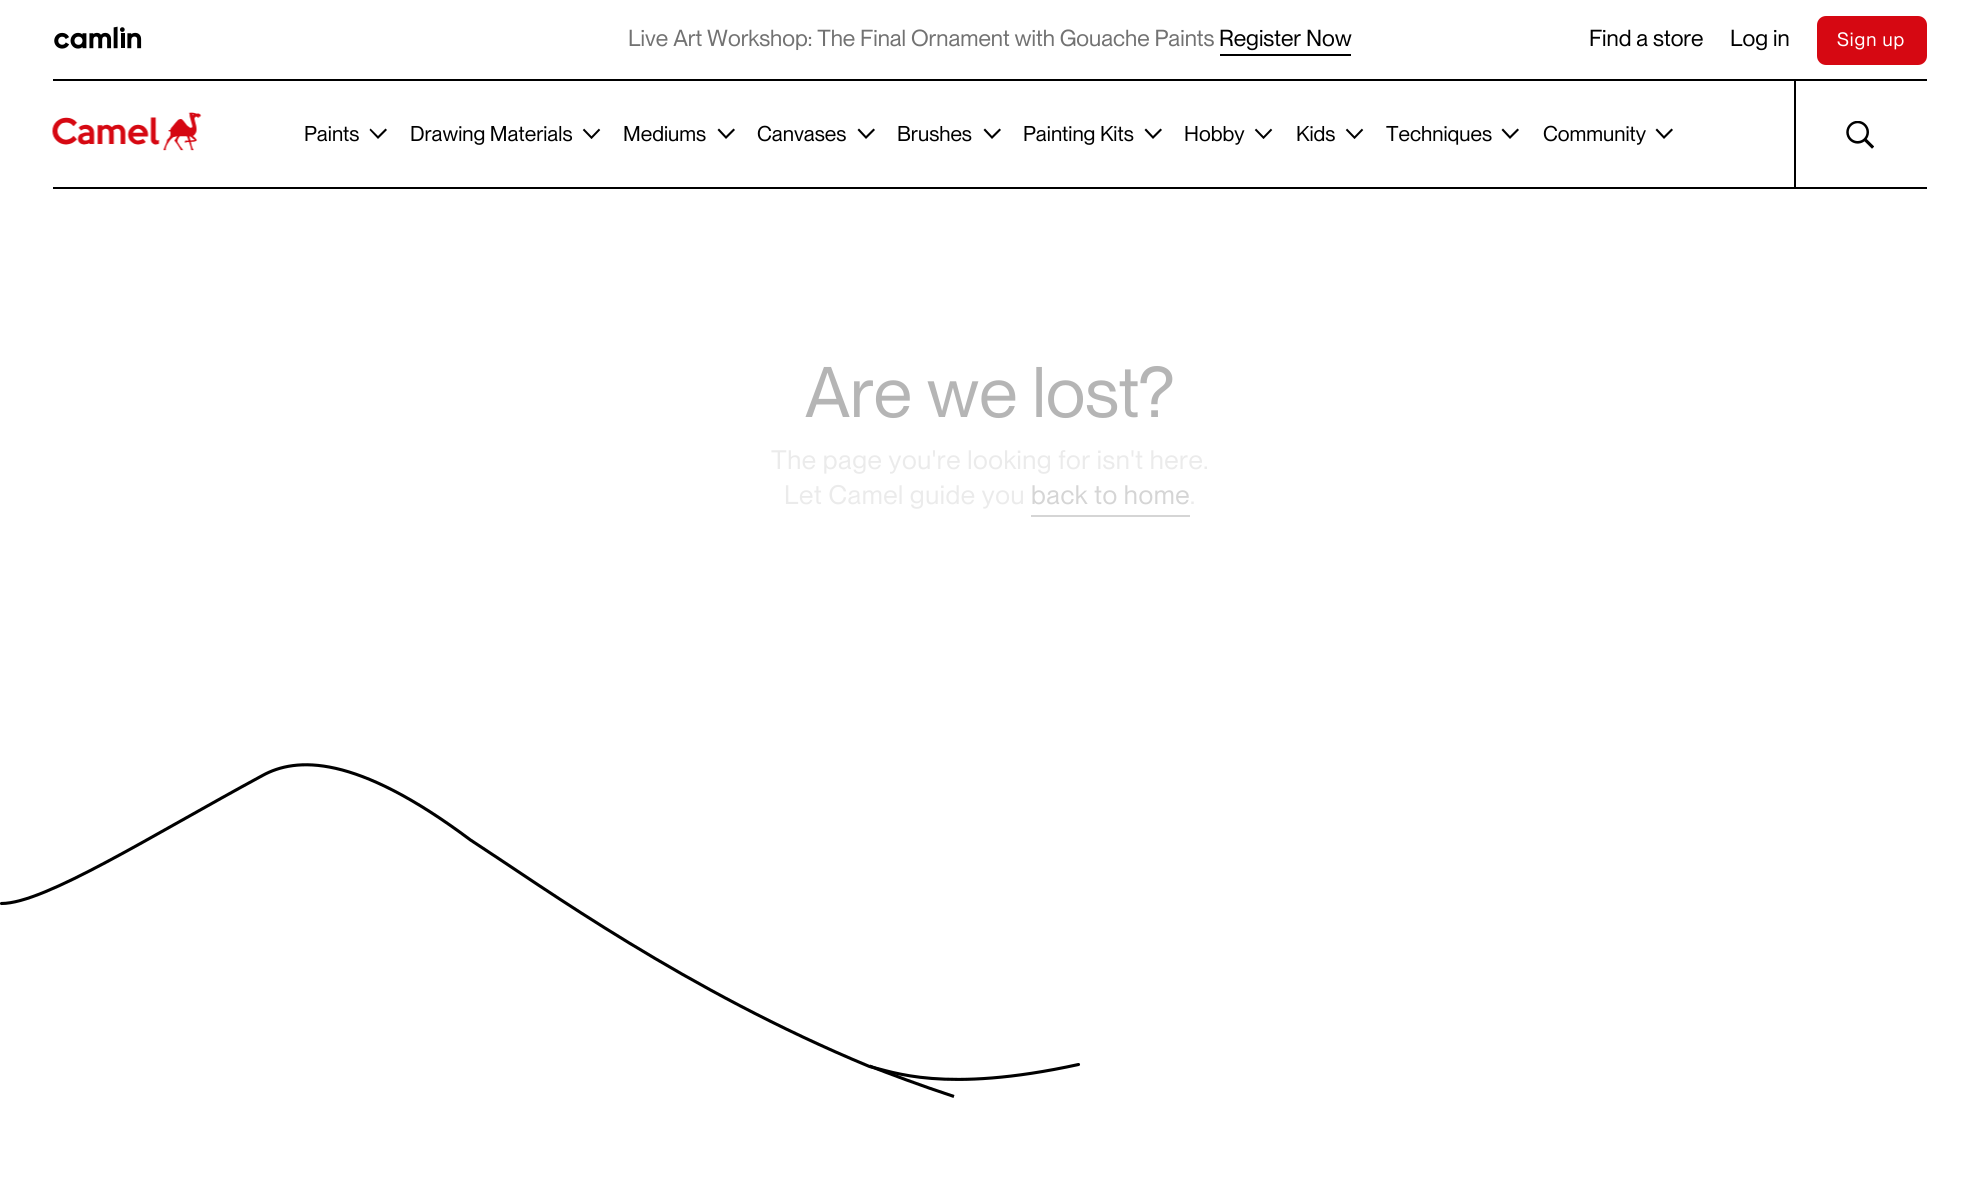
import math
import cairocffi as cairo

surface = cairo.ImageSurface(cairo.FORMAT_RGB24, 1979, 1203)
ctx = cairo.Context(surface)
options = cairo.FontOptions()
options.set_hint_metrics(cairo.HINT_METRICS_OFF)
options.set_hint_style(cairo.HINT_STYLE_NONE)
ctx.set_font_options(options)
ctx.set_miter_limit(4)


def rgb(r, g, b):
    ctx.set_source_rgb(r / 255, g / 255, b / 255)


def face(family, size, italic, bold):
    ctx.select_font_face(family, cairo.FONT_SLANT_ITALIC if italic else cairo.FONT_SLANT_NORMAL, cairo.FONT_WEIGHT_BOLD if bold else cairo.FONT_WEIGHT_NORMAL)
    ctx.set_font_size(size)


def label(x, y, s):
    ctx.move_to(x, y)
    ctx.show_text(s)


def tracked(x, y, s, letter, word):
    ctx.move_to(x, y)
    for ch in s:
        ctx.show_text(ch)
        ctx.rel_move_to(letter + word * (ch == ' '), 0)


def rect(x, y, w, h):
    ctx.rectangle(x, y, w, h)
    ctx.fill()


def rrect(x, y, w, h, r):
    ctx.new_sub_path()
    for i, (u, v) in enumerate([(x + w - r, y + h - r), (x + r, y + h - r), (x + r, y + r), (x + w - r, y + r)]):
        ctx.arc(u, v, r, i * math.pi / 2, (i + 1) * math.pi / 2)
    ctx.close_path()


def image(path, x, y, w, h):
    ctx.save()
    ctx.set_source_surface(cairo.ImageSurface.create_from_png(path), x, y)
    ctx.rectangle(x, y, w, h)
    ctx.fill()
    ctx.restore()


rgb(255, 255, 255)
ctx.paint()
image('image0.png', 54, 26, 88, 23)
face('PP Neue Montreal', 22.75, 0, 0)
rgb(114, 114, 114)
label(628, 46, 'Live Art Workshop: The Final Ornament with Gouache Paints')
rgb(0, 0, 0)
label(1219, 46, 'Register Now')
rect(1220, 54, 131, 2)
label(1589, 46, 'Find a store')
label(1730, 46, 'Log in')
rgb(214, 8, 18)
rrect(1817, 16, 110, 49, 9)
ctx.fill()
face('PP Neue Montreal', 19, 0, 0)
rgb(255, 255, 255)
tracked(1837, 46, 'Sign up', 1, 0)
rgb(0, 0, 0)
rect(53, 79, 1874, 2)
image('image1.png', 52, 112, 150, 39)
face('PP Neue Montreal', 21, 0, 0)
label(304, 141, 'Paints')
ctx.new_path()
ctx.move_to(369.5, 130)
ctx.line_to(370.5, 128.5)
ctx.line_to(378, 136)
ctx.line_to(385.5, 128.5)
ctx.line_to(387, 130)
ctx.line_to(378, 139)
ctx.close_path()
ctx.fill()
label(410, 141, 'Drawing Materials')
image('image2.png', 582, 128, 19, 11)
label(623, 141, 'Mediums')
ctx.new_path()
ctx.move_to(717.5, 130)
ctx.line_to(719, 128.5)
ctx.line_to(726, 136)
ctx.line_to(733.5, 128.5)
ctx.line_to(735, 130)
ctx.line_to(726, 139)
ctx.close_path()
ctx.fill()
label(757, 141, 'Canvases')
ctx.new_path()
ctx.move_to(857.5, 130)
ctx.line_to(859, 128.5)
ctx.line_to(866, 136)
ctx.line_to(873.5, 128.5)
ctx.line_to(875, 130)
ctx.line_to(866, 139)
ctx.close_path()
ctx.fill()
label(897, 141, 'Brushes')
ctx.new_path()
ctx.move_to(983.5, 130)
ctx.line_to(985, 128.5)
ctx.line_to(992, 136)
ctx.line_to(999.5, 128.5)
ctx.line_to(1001, 130)
ctx.line_to(992, 139)
ctx.close_path()
ctx.fill()
label(1023, 141, 'Painting Kits')
ctx.new_path()
ctx.move_to(1144.5, 130)
ctx.line_to(1146, 128.5)
ctx.line_to(1153, 136)
ctx.line_to(1160.5, 128.5)
ctx.line_to(1162, 130)
ctx.line_to(1153, 139)
ctx.close_path()
ctx.fill()
label(1184, 141, 'Hobby')
image('image2.png', 1254, 128, 19, 11)
label(1296, 141, 'Kids')
image('image2.png', 1345, 128, 19, 11)
label(1386, 141, 'Techniques')
ctx.new_path()
ctx.move_to(1501.5, 130)
ctx.line_to(1503, 128.5)
ctx.line_to(1510, 136)
ctx.line_to(1517.5, 128.5)
ctx.line_to(1519, 130)
ctx.line_to(1510, 139)
ctx.close_path()
ctx.fill()
label(1543, 141, 'Community')
ctx.new_path()
ctx.move_to(1655.5, 130)
ctx.line_to(1657, 128.5)
ctx.line_to(1664, 136)
ctx.line_to(1671.5, 128.5)
ctx.line_to(1673, 130)
ctx.line_to(1664, 139)
ctx.close_path()
ctx.fill()
rect(53, 187, 1874, 2)
rect(1794, 79, 2, 110)
image('image3.png', 1846, 121, 28, 28)
face('PP Neue Montreal', 70, 0, 0)
rgb(181, 181, 181)
label(805, 417, 'Are we lost?')
face('PP Neue Montreal', 26.25, 0, 0)
rgb(235, 235, 235)
tracked(771, 469, 'The page you\'re looking for isn\'t here.', 0.55, 0)
tracked(784, 504, 'Let Camel guide you', 0.55, 0)
rgb(213, 213, 213)
tracked(1031, 504, 'back to home', 0.55, 0)
rect(1031, 515, 159, 2)
rgb(235, 235, 235)
tracked(1190, 504, '.', 0.55, 0)
ctx.new_path()
ctx.move_to(1.5, 903.5)
ctx.curve_to(44.5, 903.5, 151.5, 835.5, 262.5, 775.5)
ctx.curve_to(296, 757, 355, 753.5, 470.5, 840)
ctx.curve_to(546, 889, 685, 990, 869.5, 1066.5)
ctx.curve_to(892, 1071.5, 943.5, 1094, 1078.5, 1064.5)
rgb(0, 0, 0)
ctx.set_line_width(3.1)
ctx.set_line_cap(cairo.LINE_CAP_ROUND)
ctx.stroke()
ctx.new_path()
ctx.move_to(954, 1096.5)
ctx.curve_to(919, 1085, 889, 1073.5, 869.5, 1066)
ctx.set_line_cap(cairo.LINE_CAP_BUTT)
ctx.stroke()
surface.write_to_png('render.png')
